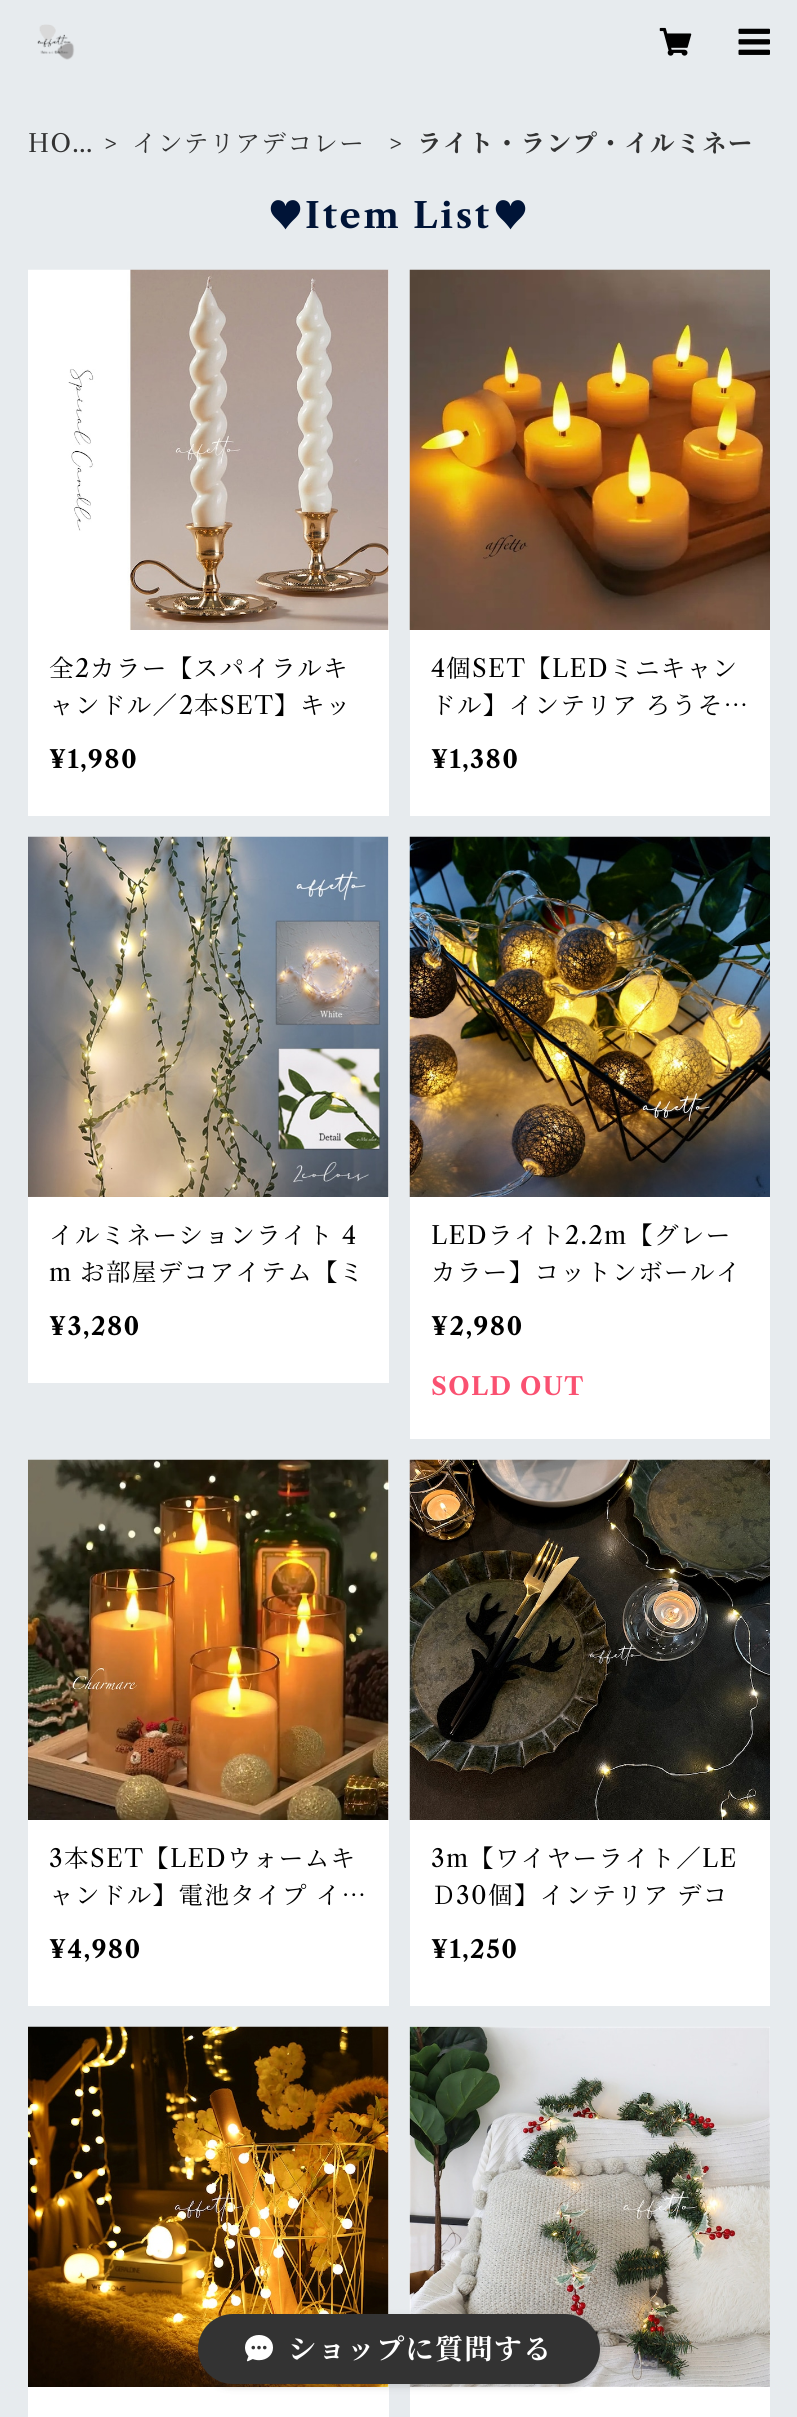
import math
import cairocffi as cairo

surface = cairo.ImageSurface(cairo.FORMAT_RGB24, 797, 2417)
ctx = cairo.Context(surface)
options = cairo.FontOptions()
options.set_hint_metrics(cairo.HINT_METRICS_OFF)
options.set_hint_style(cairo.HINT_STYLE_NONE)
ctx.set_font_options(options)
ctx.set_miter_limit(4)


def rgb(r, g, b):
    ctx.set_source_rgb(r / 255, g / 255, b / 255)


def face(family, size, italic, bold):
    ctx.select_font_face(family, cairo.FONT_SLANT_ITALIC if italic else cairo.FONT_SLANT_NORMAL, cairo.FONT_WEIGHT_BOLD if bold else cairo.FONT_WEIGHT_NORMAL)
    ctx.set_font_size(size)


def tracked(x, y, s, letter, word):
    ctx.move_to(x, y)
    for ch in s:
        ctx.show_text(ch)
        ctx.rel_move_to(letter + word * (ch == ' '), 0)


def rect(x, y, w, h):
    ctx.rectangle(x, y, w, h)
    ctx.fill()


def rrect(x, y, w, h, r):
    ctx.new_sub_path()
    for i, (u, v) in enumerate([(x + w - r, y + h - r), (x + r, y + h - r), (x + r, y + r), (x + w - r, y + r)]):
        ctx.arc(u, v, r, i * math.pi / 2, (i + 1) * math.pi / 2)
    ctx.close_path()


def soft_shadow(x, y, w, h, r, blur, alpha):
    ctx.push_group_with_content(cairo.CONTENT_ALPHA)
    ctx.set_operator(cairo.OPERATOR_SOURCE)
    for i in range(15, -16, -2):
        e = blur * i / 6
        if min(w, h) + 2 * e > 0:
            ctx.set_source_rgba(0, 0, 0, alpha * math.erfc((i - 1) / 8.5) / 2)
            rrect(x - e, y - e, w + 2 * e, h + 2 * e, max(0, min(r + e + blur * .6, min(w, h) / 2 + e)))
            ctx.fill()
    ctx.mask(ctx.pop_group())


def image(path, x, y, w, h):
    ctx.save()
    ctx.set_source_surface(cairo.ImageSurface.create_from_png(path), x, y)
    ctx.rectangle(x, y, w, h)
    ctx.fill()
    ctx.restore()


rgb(231, 235, 238)
ctx.paint()
image('image0.png', 37, 24, 38, 36)
image('image1.png', 659, 27, 33, 29)
image('image2.png', 738, 28, 32, 27)
face('Libre Caslon Text', 24.5, 0, 0)
rgb(51, 51, 51)
tracked(28, 152, 'HO…', 1.4, 0)
tracked(104, 152, '>', 1.4, 0)
face('Noto Serif JP', 24.5, 0, 0)
tracked(132, 152, 'インテリアデコレー', 1.4, 0)
face('Libre Caslon Text', 24.5, 0, 0)
tracked(389, 152, '>', 1.4, 0)
face('Noto Serif JP', 24.5, 0, 1)
tracked(417, 152, 'ライト・ランプ・イルミネー', 1.4, 0)
face('Noto Serif JP', 35, 0, 1)
rgb(0, 20, 55)
tracked(268, 228, '♥', 2.75, 0)
face('Libre Caslon Text', 35, 0, 1)
tracked(305, 228, 'Item List', 2.75, 0)
face('Noto Serif JP', 35, 0, 1)
tracked(493, 228, '♥', 2.75, 0)
rgb(255, 255, 255)
rect(28, 270, 361, 546)
image('image3.png', 28, 269, 361, 361)
face('Noto Serif JP', 24.5, 0, 0)
rgb(0, 0, 0)
tracked(49, 677, '全', 1.4, 0)
face('Libre Caslon Text', 24.5, 0, 0)
tracked(75, 677, '2', 1.4, 0)
face('Noto Serif JP', 24.5, 0, 0)
tracked(90, 677, 'カラー【スパイラルキ', 1.4, 0)
tracked(49, 714, 'ャンドル／', 1.4, 0)
face('Libre Caslon Text', 24.5, 0, 0)
tracked(179, 714, '2', 1.4, 0)
face('Noto Serif JP', 24.5, 0, 0)
tracked(194, 714, '本', 1.4, 0)
face('Libre Caslon Text', 24.5, 0, 0)
tracked(220, 714, 'SET', 1.4, 0)
face('Noto Serif JP', 24.5, 0, 0)
tracked(274, 714, '】キッ', 1.4, 0)
face('Libre Caslon Text', 24.5, 0, 1)
tracked(49, 768, '¥1,980', 1.4, 0)
rgb(255, 255, 255)
rect(410, 630, 360, 186)
image('image4.png', 409, 269, 361, 361)
face('Libre Caslon Text', 24.5, 0, 0)
rgb(0, 0, 0)
tracked(431, 677, '4', 1.4, 0)
face('Noto Serif JP', 24.5, 0, 0)
tracked(446, 677, '個', 1.4, 0)
face('Libre Caslon Text', 24.5, 0, 0)
tracked(472, 677, 'SET', 1.4, 0)
face('Noto Serif JP', 24.5, 0, 0)
tracked(526, 677, '【', 1.4, 0)
face('Libre Caslon Text', 24.5, 0, 0)
tracked(552, 677, 'LED', 1.4, 0)
face('Noto Serif JP', 24.5, 0, 0)
tracked(609, 677, 'ミニキャン', 1.4, 0)
tracked(431, 714, 'ドル】インテリア ろうそ…', 1.4, 0)
face('Libre Caslon Text', 24.5, 0, 1)
tracked(431, 768, '¥1,380', 1.4, 0)
rgb(255, 255, 255)
rect(28, 837, 361, 546)
image('image5.png', 28, 836, 361, 361)
face('Noto Serif JP', 24.5, 0, 0)
rgb(0, 0, 0)
tracked(49, 1244, 'イルミネーションライト', 1.4, 0)
face('Libre Caslon Text', 24.5, 0, 0)
tracked(342, 1244, '4', 1.4, 0)
tracked(49, 1281, 'm', 1.4, 0)
face('Noto Serif JP', 24.5, 0, 0)
tracked(80, 1281, 'お部屋デコアイテム【ミ', 1.4, 0)
face('Libre Caslon Text', 24.5, 0, 1)
tracked(49, 1335, '¥3,280', 1.4, 0)
rgb(255, 255, 255)
rect(410, 1197, 360, 242)
image('image6.png', 409, 836, 361, 361)
face('Libre Caslon Text', 24.5, 0, 0)
rgb(0, 0, 0)
tracked(431, 1244, 'LED', 1.4, 0)
face('Noto Serif JP', 24.5, 0, 0)
tracked(488, 1244, 'ライト', 1.4, 0)
face('Libre Caslon Text', 24.5, 0, 0)
tracked(565, 1244, '2.2m', 1.4, 0)
face('Noto Serif JP', 24.5, 0, 0)
tracked(628, 1244, '【グレー', 1.4, 0)
tracked(431, 1281, 'カラー】コットンボールイ', 1.4, 0)
face('Libre Caslon Text', 24.5, 0, 1)
tracked(431, 1335, '¥2,980', 1.4, 0)
rgb(250, 81, 113)
tracked(431, 1395, 'SOLD OUT', 1.4, 0)
rgb(255, 255, 255)
rect(28, 1460, 361, 546)
image('image7.png', 28, 1459, 361, 361)
face('Libre Caslon Text', 24.5, 0, 0)
rgb(0, 0, 0)
tracked(49, 1867, '3', 1.4, 0)
face('Noto Serif JP', 24.5, 0, 0)
tracked(64, 1867, '本', 1.4, 0)
face('Libre Caslon Text', 24.5, 0, 0)
tracked(90, 1867, 'SET', 1.4, 0)
face('Noto Serif JP', 24.5, 0, 0)
tracked(144, 1867, '【', 1.4, 0)
face('Libre Caslon Text', 24.5, 0, 0)
tracked(170, 1867, 'LED', 1.4, 0)
face('Noto Serif JP', 24.5, 0, 0)
tracked(227, 1867, 'ウォームキ', 1.4, 0)
tracked(49, 1904, 'ャンドル】電池タイプ イ…', 1.4, 0)
face('Libre Caslon Text', 24.5, 0, 1)
tracked(49, 1958, '¥4,980', 1.4, 0)
rgb(255, 255, 255)
rect(410, 1820, 360, 186)
image('image8.png', 409, 1459, 361, 361)
face('Libre Caslon Text', 24.5, 0, 0)
rgb(0, 0, 0)
tracked(431, 1867, '3m', 1.4, 0)
face('Noto Serif JP', 24.5, 0, 0)
tracked(469, 1867, '【ワイヤーライト／', 1.4, 0)
face('Libre Caslon Text', 24.5, 0, 0)
tracked(702, 1867, 'LE', 1.4, 0)
face('Noto Serif JP', 24.5, 0, 0)
tracked(431, 1904, 'Ｄ', 1.4, 0)
face('Libre Caslon Text', 24.5, 0, 0)
tracked(456, 1904, '30', 1.4, 0)
face('Noto Serif JP', 24.5, 0, 0)
tracked(488, 1904, '個】インテリア デコ', 1.4, 0)
face('Libre Caslon Text', 24.5, 0, 1)
tracked(431, 1958, '¥1,250', 1.4, 0)
rgb(255, 255, 255)
rect(28, 2027, 361, 390)
image('image9.png', 28, 2026, 361, 361)
rect(410, 2387, 360, 30)
image('image10.png', 409, 2026, 361, 361)
rgb(48, 48, 48)
soft_shadow(198, 2317, 402, 70, 35, 3.5, 0.2)
rgb(51, 51, 51)
rrect(198, 2314, 402, 70, 35)
ctx.fill()
image('image11.png', 245, 2335, 28, 27)
face('Noto Serif JP', 28, 0, 1)
rgb(255, 255, 255)
tracked(288, 2359, 'ショップに質問する', 1.4, 0)
surface.write_to_png('render.png')
